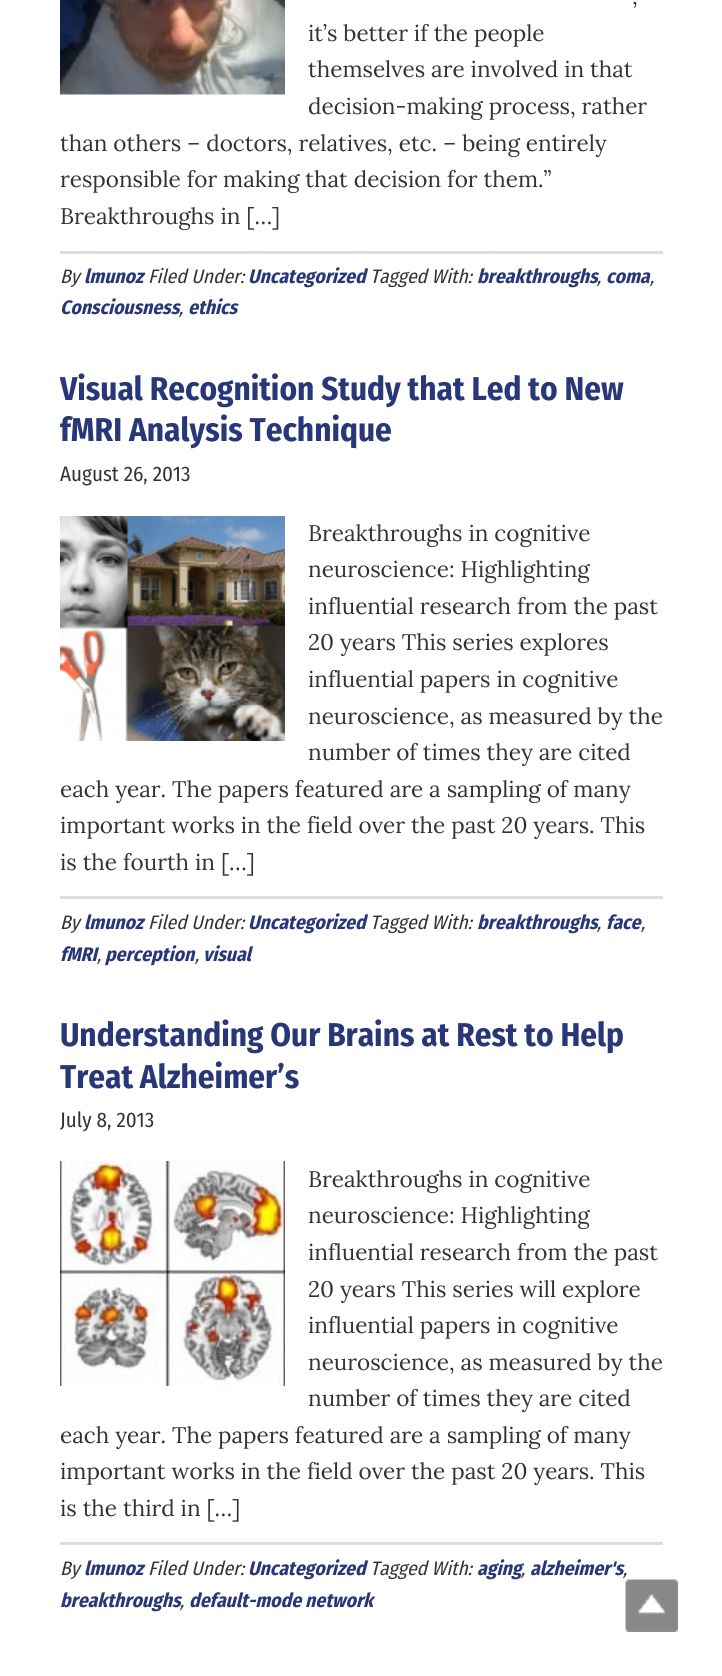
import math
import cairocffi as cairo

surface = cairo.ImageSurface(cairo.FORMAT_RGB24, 722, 1676)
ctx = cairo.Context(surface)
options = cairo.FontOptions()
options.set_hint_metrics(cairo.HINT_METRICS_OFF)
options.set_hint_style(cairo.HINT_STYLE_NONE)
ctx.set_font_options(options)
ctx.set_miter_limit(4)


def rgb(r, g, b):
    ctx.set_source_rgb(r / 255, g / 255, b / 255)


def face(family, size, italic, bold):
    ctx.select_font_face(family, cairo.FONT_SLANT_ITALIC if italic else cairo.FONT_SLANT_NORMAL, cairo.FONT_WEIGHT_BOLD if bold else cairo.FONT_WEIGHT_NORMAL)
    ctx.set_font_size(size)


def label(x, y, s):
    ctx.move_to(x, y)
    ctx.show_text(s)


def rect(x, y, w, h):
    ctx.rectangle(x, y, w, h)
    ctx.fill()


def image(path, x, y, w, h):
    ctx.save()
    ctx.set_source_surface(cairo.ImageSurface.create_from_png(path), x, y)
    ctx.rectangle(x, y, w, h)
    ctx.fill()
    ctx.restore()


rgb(255, 255, 255)
ctx.paint()
image('image0.png', 60, 0, 225, 95)
face('Lora', 22.5, 0, 0)
rgb(51, 51, 51)
label(632, 4, ',')
label(308, 41, 'it’s better if the people')
label(308, 77, 'themselves are involved in that')
label(308, 114, 'decision-making process, rather')
label(60, 151, 'than others – doctors, relatives, etc. – being entirely')
label(60, 187, 'responsible for making that decision for them.”')
label(60, 224, 'Breakthroughs in […]')
rgb(221, 221, 221)
rect(60, 251, 603, 3)
face('Fira Sans Condensed', 19.5, 1, 0)
rgb(51, 51, 51)
label(60, 283, 'By')
face('Fira Sans Condensed', 19.5, 1, 1)
rgb(40, 55, 119)
label(84, 283, 'lmunoz')
face('Fira Sans Condensed', 19.5, 1, 0)
rgb(51, 51, 51)
label(148, 283, 'Filed Under:')
face('Fira Sans Condensed', 19.5, 1, 1)
rgb(40, 55, 119)
label(248, 283, 'Uncategorized')
face('Fira Sans Condensed', 19.5, 1, 0)
rgb(51, 51, 51)
label(370, 283, 'Tagged With:')
face('Fira Sans Condensed', 19.5, 1, 1)
rgb(40, 55, 119)
label(477, 283, 'breakthroughs')
label(606, 283, 'coma')
face('Fira Sans Condensed', 19.5, 1, 0)
rgb(51, 51, 51)
label(597, 283, ',')
label(650, 283, ',')
face('Fira Sans Condensed', 19.5, 1, 1)
rgb(40, 55, 119)
label(60, 314, 'Consciousness')
label(188, 314, 'ethics')
face('Fira Sans Condensed', 19.5, 1, 0)
rgb(51, 51, 51)
label(179, 314, ',')
face('Fira Sans Condensed', 33, 0, 1)
rgb(40, 55, 119)
label(60, 400, 'Visual Recognition Study that Led to New')
label(60, 441, 'fMRI Analysis Technique')
face('Fira Sans Condensed', 21, 0, 0)
rgb(51, 51, 51)
label(60, 481, 'August 26, 2013')
image('image1.png', 60, 516, 225, 225)
face('Lora', 22.5, 0, 0)
label(308, 541, 'Breakthroughs in cognitive')
label(308, 577, 'neuroscience: Highlighting')
label(308, 614, 'influential research from the past')
label(308, 650, '20 years This series explores')
label(308, 687, 'influential papers in cognitive')
label(308, 724, 'neuroscience, as measured by the')
label(308, 760, 'number of times they are cited')
label(60, 797, 'each year. The papers featured are a sampling of many')
label(60, 833, 'important works in the field over the past 20 years. This')
label(60, 870, 'is the fourth in […]')
rgb(221, 221, 221)
rect(60, 896, 603, 3)
face('Fira Sans Condensed', 19.5, 1, 0)
rgb(51, 51, 51)
label(60, 929, 'By')
face('Fira Sans Condensed', 19.5, 1, 1)
rgb(40, 55, 119)
label(84, 929, 'lmunoz')
face('Fira Sans Condensed', 19.5, 1, 0)
rgb(51, 51, 51)
label(148, 929, 'Filed Under:')
face('Fira Sans Condensed', 19.5, 1, 1)
rgb(40, 55, 119)
label(248, 929, 'Uncategorized')
face('Fira Sans Condensed', 19.5, 1, 0)
rgb(51, 51, 51)
label(370, 929, 'Tagged With:')
face('Fira Sans Condensed', 19.5, 1, 1)
rgb(40, 55, 119)
label(477, 929, 'breakthroughs')
label(606, 929, 'face')
face('Fira Sans Condensed', 19.5, 1, 0)
rgb(51, 51, 51)
label(597, 929, ',')
label(641, 929, ',')
face('Fira Sans Condensed', 19.5, 1, 1)
rgb(40, 55, 119)
label(60, 961, 'fMRI')
label(105, 961, 'perception')
label(203, 961, 'visual')
face('Fira Sans Condensed', 19.5, 1, 0)
rgb(51, 51, 51)
label(97, 961, ',')
label(195, 961, ',')
face('Fira Sans Condensed', 33, 0, 1)
rgb(40, 55, 119)
label(60, 1046, 'Understanding Our Brains at Rest to Help')
label(60, 1088, 'Treat Alzheimer’s')
face('Fira Sans Condensed', 21, 0, 0)
rgb(51, 51, 51)
label(60, 1127, 'July 8, 2013')
image('image2.png', 60, 1161, 225, 225)
face('Lora', 22.5, 0, 0)
label(308, 1187, 'Breakthroughs in cognitive')
label(308, 1223, 'neuroscience: Highlighting')
label(308, 1260, 'influential research from the past')
label(308, 1297, '20 years This series will explore')
label(308, 1333, 'influential papers in cognitive')
label(308, 1370, 'neuroscience, as measured by the')
label(308, 1406, 'number of times they are cited')
label(60, 1443, 'each year. The papers featured are a sampling of many')
label(60, 1479, 'important works in the field over the past 20 years. This')
label(60, 1516, 'is the third in […]')
rgb(221, 221, 221)
rect(60, 1542, 603, 3)
face('Fira Sans Condensed', 19.5, 1, 0)
rgb(51, 51, 51)
label(60, 1575, 'By')
face('Fira Sans Condensed', 19.5, 1, 1)
rgb(40, 55, 119)
label(84, 1575, 'lmunoz')
face('Fira Sans Condensed', 19.5, 1, 0)
rgb(51, 51, 51)
label(148, 1575, 'Filed Under:')
face('Fira Sans Condensed', 19.5, 1, 1)
rgb(40, 55, 119)
label(248, 1575, 'Uncategorized')
face('Fira Sans Condensed', 19.5, 1, 0)
rgb(51, 51, 51)
label(370, 1575, 'Tagged With:')
face('Fira Sans Condensed', 19.5, 1, 1)
rgb(40, 55, 119)
label(477, 1575, 'aging')
label(530, 1575, 'alzheimer\'s')
face('Fira Sans Condensed', 19.5, 1, 0)
rgb(51, 51, 51)
label(521, 1575, ',')
label(623, 1575, ',')
face('Fira Sans Condensed', 19.5, 1, 1)
rgb(40, 55, 119)
label(60, 1607, 'breakthroughs')
label(189, 1607, 'default-mode network')
face('Fira Sans Condensed', 19.5, 1, 0)
rgb(51, 51, 51)
label(180, 1607, ',')
image('image3.png', 625, 1579, 53, 53)
surface.write_to_png('render.png')
